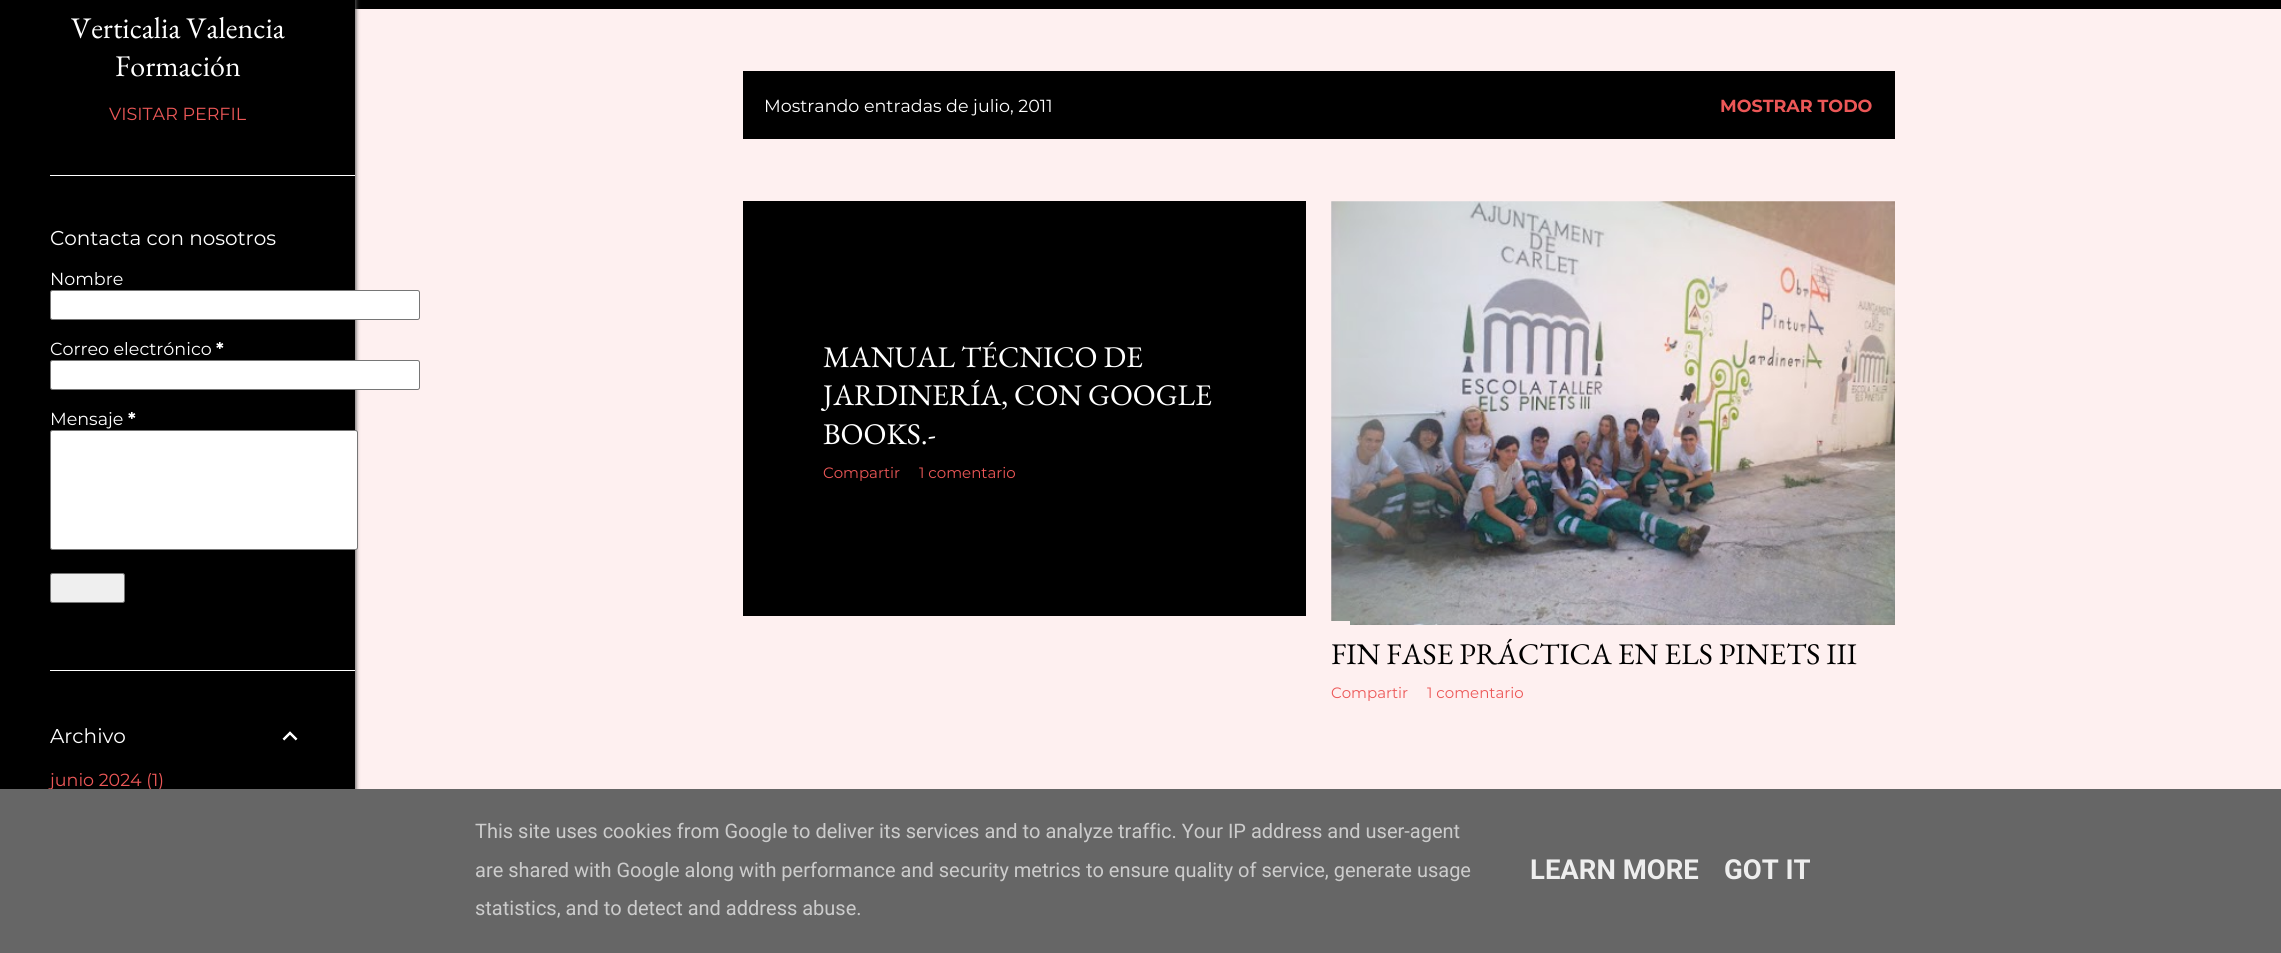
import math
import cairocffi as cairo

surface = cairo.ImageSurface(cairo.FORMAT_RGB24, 2281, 953)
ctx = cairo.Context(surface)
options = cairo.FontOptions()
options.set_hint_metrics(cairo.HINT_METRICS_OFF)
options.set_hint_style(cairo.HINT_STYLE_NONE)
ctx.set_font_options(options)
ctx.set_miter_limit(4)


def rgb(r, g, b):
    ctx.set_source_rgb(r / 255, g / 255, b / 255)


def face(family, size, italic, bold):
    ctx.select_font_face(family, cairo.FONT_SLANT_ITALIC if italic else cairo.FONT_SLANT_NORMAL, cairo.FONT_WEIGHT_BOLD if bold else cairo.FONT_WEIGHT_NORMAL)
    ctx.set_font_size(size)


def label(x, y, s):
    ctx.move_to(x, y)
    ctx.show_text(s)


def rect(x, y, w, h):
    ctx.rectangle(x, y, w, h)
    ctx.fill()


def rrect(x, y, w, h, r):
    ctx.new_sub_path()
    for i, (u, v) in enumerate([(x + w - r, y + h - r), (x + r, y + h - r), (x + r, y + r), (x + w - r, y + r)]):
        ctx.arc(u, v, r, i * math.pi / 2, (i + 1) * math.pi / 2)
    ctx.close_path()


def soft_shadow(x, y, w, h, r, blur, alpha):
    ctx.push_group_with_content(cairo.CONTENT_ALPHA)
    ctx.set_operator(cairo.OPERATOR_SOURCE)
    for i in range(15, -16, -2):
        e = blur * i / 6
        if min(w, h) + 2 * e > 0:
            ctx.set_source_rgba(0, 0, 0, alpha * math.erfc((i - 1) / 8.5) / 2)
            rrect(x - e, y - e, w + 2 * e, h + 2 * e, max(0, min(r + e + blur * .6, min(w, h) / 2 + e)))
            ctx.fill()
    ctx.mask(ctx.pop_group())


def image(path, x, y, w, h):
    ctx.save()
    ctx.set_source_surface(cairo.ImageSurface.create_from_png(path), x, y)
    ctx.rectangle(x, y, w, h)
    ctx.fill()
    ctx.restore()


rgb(254, 240, 240)
ctx.paint()
rgb(0, 0, 0)
rect(355, 0, 1926, 9)
rgb(95, 95, 95)
soft_shadow(1, -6, 355, 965, 0, 2, 1)
rgb(0, 0, 0)
rect(0, 0, 355, 789)
face('EB Garamond', 30, 0, 0)
rgb(255, 255, 255)
label(71, 38, 'Verticalia Valencia')
label(115, 76, 'Formación')
face('Montserrat', 17.5, 0, 0)
rgb(236, 87, 87)
label(109, 120, 'VISITAR PERFIL')
rgb(255, 255, 255)
rect(50, 175, 305, 1)
face('Montserrat', 20, 0, 0)
label(50, 245, 'Contacta con nosotros')
face('Montserrat', 17.5, 0, 0)
label(50, 285, 'Nombre')
rrect(50.5, 290.5, 369, 29, 2)
ctx.fill_preserve()
rgb(118, 118, 118)
ctx.set_line_width(1)
ctx.stroke()
rgb(255, 255, 255)
label(50, 355, 'Correo electrónico')
face('Montserrat', 17.5, 0, 1)
label(216, 355, '*')
rrect(50.5, 360.5, 369, 29, 2)
ctx.fill_preserve()
rgb(118, 118, 118)
ctx.stroke()
face('Montserrat', 17.5, 0, 0)
rgb(255, 255, 255)
label(50, 425, 'Mensaje')
face('Montserrat', 17.5, 0, 1)
label(128, 425, '*')
rrect(50.5, 430.5, 307, 119, 2)
ctx.fill_preserve()
rgb(118, 118, 118)
ctx.stroke()
rgb(239, 239, 239)
rrect(50.5, 573.5, 74, 29, 2)
ctx.fill_preserve()
rgb(118, 118, 118)
ctx.stroke()
rgb(255, 255, 255)
rect(50, 670, 305, 1)
face('Montserrat', 20, 0, 0)
label(50, 743, 'Archivo')
image('image0.png', 282, 731, 16, 10)
face('Montserrat', 17.5, 0, 0)
rgb(236, 87, 87)
label(50, 786, 'junio 2024 (1)')
rgb(0, 0, 0)
rect(743, 71, 1152, 68)
rgb(255, 255, 255)
label(764, 112, 'Mostrando entradas de julio, 2011')
face('Montserrat', 17.5, 0, 1)
rgb(236, 87, 87)
label(1720, 112, 'MOSTRAR TODO')
rgb(0, 0, 0)
rect(743, 201, 563, 415)
face('EB Garamond', 30, 0, 0)
rgb(255, 255, 255)
label(823, 367, 'MANUAL TÉCNICO DE')
label(823, 405, 'JARDINERÍA, CON GOOGLE')
label(823, 444, 'BOOKS.-')
face('Montserrat', 15, 0, 0)
rgb(236, 87, 87)
label(823, 478, 'Compartir')
label(919, 478, '1 comentario')
image('image1.png', 1331, 201, 564, 424)
rgb(254, 240, 240)
rect(1331, 621, 19, 4)
face('EB Garamond', 30, 0, 0)
rgb(0, 0, 0)
label(1331, 664, 'FIN FASE PRÁCTICA EN ELS PINETS III')
face('Montserrat', 15, 0, 0)
rgb(236, 87, 87)
label(1331, 698, 'Compartir')
label(1427, 698, '1 comentario')
rgb(102, 102, 102)
rect(0, 789, 2281, 164)
face('Roboto', 20, 0, 0)
rgb(204, 204, 204)
label(475, 838, 'This site uses cookies from Google to deliver its services and to analyze traffic. Your IP address and user-agent')
label(475, 877, 'are shared with Google along with performance and security metrics to ensure quality of service, generate usage')
label(475, 915, 'statistics, and to detect and address abuse.')
face('Roboto', 27.5, 0, 1)
rgb(238, 238, 238)
label(1530, 879, 'LEARN MORE')
label(1724, 879, 'GOT IT')
surface.write_to_png('render.png')
